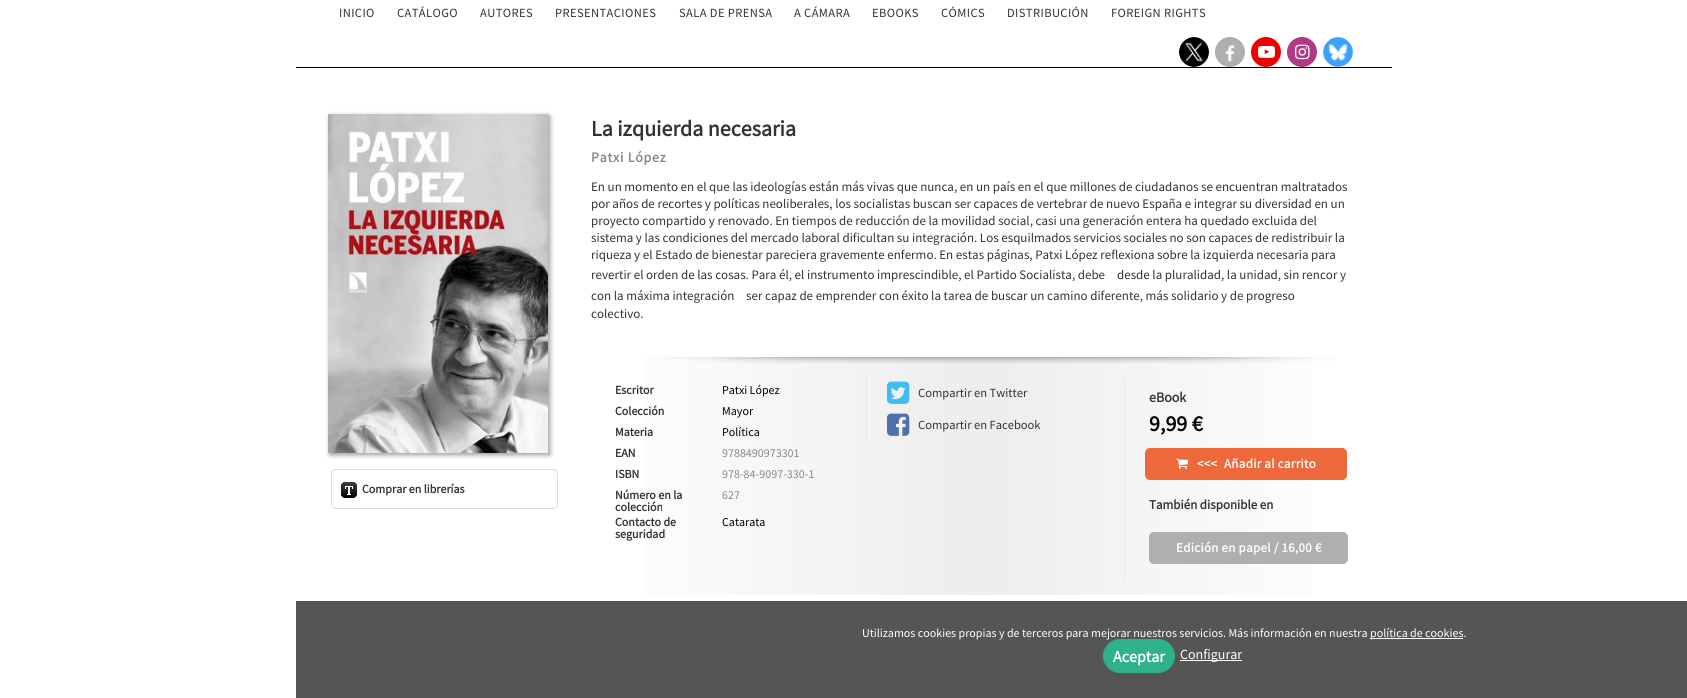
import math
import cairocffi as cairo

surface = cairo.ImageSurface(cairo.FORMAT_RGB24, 1687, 698)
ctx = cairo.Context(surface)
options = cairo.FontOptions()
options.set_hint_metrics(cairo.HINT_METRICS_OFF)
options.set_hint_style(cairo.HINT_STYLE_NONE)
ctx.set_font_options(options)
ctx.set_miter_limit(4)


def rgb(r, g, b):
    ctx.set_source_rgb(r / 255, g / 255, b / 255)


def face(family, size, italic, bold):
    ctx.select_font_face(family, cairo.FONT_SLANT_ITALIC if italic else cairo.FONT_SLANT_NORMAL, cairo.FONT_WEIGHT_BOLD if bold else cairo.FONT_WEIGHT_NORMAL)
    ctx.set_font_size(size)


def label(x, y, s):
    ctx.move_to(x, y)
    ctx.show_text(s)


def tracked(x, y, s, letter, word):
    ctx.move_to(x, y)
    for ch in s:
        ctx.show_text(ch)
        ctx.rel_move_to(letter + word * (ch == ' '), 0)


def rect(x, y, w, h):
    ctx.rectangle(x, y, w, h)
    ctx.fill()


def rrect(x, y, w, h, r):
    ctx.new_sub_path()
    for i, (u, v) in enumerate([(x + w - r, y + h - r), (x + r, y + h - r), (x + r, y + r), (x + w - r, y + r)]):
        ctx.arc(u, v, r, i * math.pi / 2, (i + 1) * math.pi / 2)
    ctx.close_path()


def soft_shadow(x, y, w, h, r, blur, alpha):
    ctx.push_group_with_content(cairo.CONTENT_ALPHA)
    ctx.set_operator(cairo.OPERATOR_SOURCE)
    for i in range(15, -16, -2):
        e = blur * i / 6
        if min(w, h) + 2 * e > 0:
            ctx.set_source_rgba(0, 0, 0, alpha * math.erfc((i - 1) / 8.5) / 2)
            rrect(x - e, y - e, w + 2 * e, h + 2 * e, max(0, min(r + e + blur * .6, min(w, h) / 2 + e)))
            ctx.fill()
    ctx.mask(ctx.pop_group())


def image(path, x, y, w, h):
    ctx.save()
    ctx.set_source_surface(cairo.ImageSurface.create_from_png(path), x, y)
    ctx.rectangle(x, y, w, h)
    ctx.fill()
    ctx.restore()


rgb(255, 255, 255)
ctx.paint()
rgb(0, 0, 0)
rect(296, 67, 1096, 1)
face('Source Sans Pro', 12.5, 0, 0)
rgb(51, 51, 51)
tracked(339, 17, 'INICIO', 0.4, 0)
tracked(397, 17, 'CATÁLOGO', 0.4, 0)
tracked(480, 17, 'AUTORES', 0.4, 0)
tracked(555, 17, 'PRESENTACIONES', 0.4, 0)
tracked(679, 17, 'SALA DE PRENSA', 0.4, 0)
tracked(794, 17, 'A CÁMARA', 0.4, 0)
tracked(872, 17, 'EBOOKS', 0.4, 0)
tracked(941, 17, 'CÓMICS', 0.4, 0)
tracked(1007, 17, 'DISTRIBUCIÓN', 0.4, 0)
tracked(1111, 17, 'FOREIGN RIGHTS', 0.4, 0)
rgb(175, 175, 175)
ctx.new_path()
ctx.arc(1194, 52, 15, 0, 2 * math.pi)
ctx.fill()
image('image0.png', 1179, 37, 30, 30)
ctx.arc(1230, 52, 15, 0, 2 * math.pi)
ctx.fill()
image('image1.png', 1225, 45, 10, 17)
rgb(240, 0, 0)
ctx.arc(1266, 52, 15, 0, 2 * math.pi)
ctx.fill()
image('image2.png', 1258, 45, 17, 13)
rgb(176, 58, 136)
ctx.arc(1302, 52, 15, 0, 2 * math.pi)
ctx.fill()
image('image3.png', 1295, 44, 15, 16)
image('image4.png', 1323, 37, 30, 30)
rgb(153, 153, 153)
soft_shadow(330, 116, 220, 339, 0, 2.5, 1)
image('image5.png', 328, 114, 220, 339)
rrect(331.5, 469.5, 226, 39, 4.5)
rgb(221, 221, 221)
ctx.set_line_width(1)
ctx.stroke()
image('image6.png', 341, 482, 16, 16)
face('Source Sans Pro', 12, 0, 1)
rgb(51, 51, 51)
label(362, 493, 'Comprar en librerías')
face('Source Sans Pro', 22, 0, 1)
label(591, 136, 'La izquierda necesaria')
face('Source Sans Pro', 14, 0, 1)
rgb(136, 136, 136)
tracked(591, 162, 'Patxi López', 0.75, 0)
face('Source Sans Pro', 13, 0, 0)
rgb(51, 51, 51)
label(591, 191, 'En un momento en el que las ideologías están más vivas que nunca, en un país en el que millones de ciudadanos se encuentran maltratados')
label(591, 208, 'por años de recortes y políticas neoliberales, los socialistas buscan ser capaces de vertebrar de nuevo España e integrar su diversidad en un')
label(591, 225, 'proyecto compartido y renovado. En tiempos de reducción de la movilidad social, casi una generación entera ha quedado excluida del')
label(591, 242, 'sistema y las condiciones del mercado laboral dificultan su integración. Los esquilmados servicios sociales no son capaces de redistribuir la')
label(591, 259, 'riqueza y el Estado de bienestar pareciera gravemente enfermo. En estas páginas, Patxi López reflexiona sobre la izquierda necesaria para')
label(591, 279, 'revertir el orden de las cosas. Para él, el instrumento imprescindible, el Partido Socialista, debe')
label(1117, 279, 'desde la pluralidad, la unidad, sin rencor y')
label(591, 300, 'con la máxima integración')
label(746, 300, 'ser capaz de emprender con éxito la tarea de buscar un camino diferente, más solidario y de progreso')
label(591, 318, 'colectivo.')
gradient = cairo.LinearGradient(591, 476, 1366, 476)
gradient.add_color_stop_rgba(0, 1, 1, 1, 1)
gradient.add_color_stop_rgba(0.5, 0.929, 0.929, 0.929, 1)
gradient.add_color_stop_rgba(1, 1, 1, 1, 1)
ctx.set_source(gradient)
rect(645, 357, 667, 238)
image('image7.png', 660, 357, 673, 7)
face('Source Sans Pro', 12, 0, 1)
rgb(51, 51, 51)
label(615, 394, 'Escritor')
face('Source Sans Pro', 12, 0, 0)
rgb(0, 0, 0)
label(722, 394, 'Patxi López')
face('Source Sans Pro', 12, 0, 1)
rgb(51, 51, 51)
label(615, 415, 'Colección')
face('Source Sans Pro', 12, 0, 0)
rgb(0, 0, 0)
label(722, 415, 'Mayor')
face('Source Sans Pro', 12, 0, 1)
rgb(51, 51, 51)
label(615, 436, 'Materia')
face('Source Sans Pro', 12, 0, 0)
rgb(0, 0, 0)
label(722, 436, 'Política')
face('Source Sans Pro', 12, 0, 1)
rgb(51, 51, 51)
label(615, 457, 'EAN')
face('Source Sans Pro', 12, 0, 0)
rgb(136, 136, 136)
label(722, 457, '9788490973301')
face('Source Sans Pro', 12, 0, 1)
rgb(51, 51, 51)
label(615, 478, 'ISBN')
face('Source Sans Pro', 12, 0, 0)
rgb(136, 136, 136)
label(722, 478, '978-84-9097-330-1')
face('Source Sans Pro', 12, 0, 1)
rgb(51, 51, 51)
label(615, 499, 'Número en la')
label(615, 511, 'colección')
face('Source Sans Pro', 12, 0, 0)
rgb(136, 136, 136)
label(722, 499, '627')
face('Source Sans Pro', 12, 0, 1)
rgb(51, 51, 51)
label(615, 526, 'Contacto de')
label(615, 538, 'seguridad')
face('Source Sans Pro', 12, 0, 0)
rgb(0, 0, 0)
label(722, 526, 'Catarata')
rgb(232, 232, 232)
rect(866, 377, 1, 64)
image('image8.png', 887, 381, 23, 23)
face('Source Sans Pro', 12.5, 0, 0)
rgb(51, 51, 51)
label(918, 397, 'Compartir en Twitter')
image('image9.png', 887, 413, 23, 23)
label(918, 429, 'Compartir en Facebook')
rgb(232, 232, 232)
rect(1124, 377, 1, 203)
face('Source Sans Pro', 14, 0, 1)
rgb(51, 51, 51)
label(1149, 402, 'eBook')
face('Source Sans Pro', 22, 0, 1)
rgb(0, 0, 0)
label(1149, 431, '9,99 €')
rgb(237, 104, 58)
rrect(1145.5, 448.5, 201, 31, 4.5)
ctx.fill_preserve()
ctx.stroke()
image('image10.png', 1176, 458, 13, 11)
face('Source Sans Pro', 13, 0, 1)
rgb(255, 255, 255)
tracked(1197, 468, '<<<', 0.3, 0)
tracked(1224, 468, 'Añadir al carrito', 0.3, 0)
rgb(51, 51, 51)
label(1149, 509, 'También disponible en')
rgb(175, 175, 175)
rrect(1149.5, 532.5, 198, 31, 4.5)
ctx.fill_preserve()
ctx.stroke()
rgb(255, 255, 255)
tracked(1176, 552, 'Edición en papel / 16,00 €', 0.3, 0)
rgb(85, 85, 85)
rect(296, 601, 1391, 97)
face('Source Sans Pro', 12, 0, 0)
rgb(255, 255, 255)
label(862, 637, 'Utilizamos cookies propias y de terceros para mejorar nuestros servicios. Más información en nuestra')
rect(1370, 638, 93, 1)
label(1370, 637, 'política de cookies.')
rgb(47, 177, 141)
rrect(1103, 639, 72, 34, 17)
ctx.fill()
face('Source Sans Pro', 16, 0, 1)
rgb(255, 255, 255)
label(1113, 662, 'Aceptar')
rect(1180, 660, 62, 1)
face('Source Sans Pro', 14, 0, 0)
label(1180, 659, 'Configurar')
surface.write_to_png('render.png')
